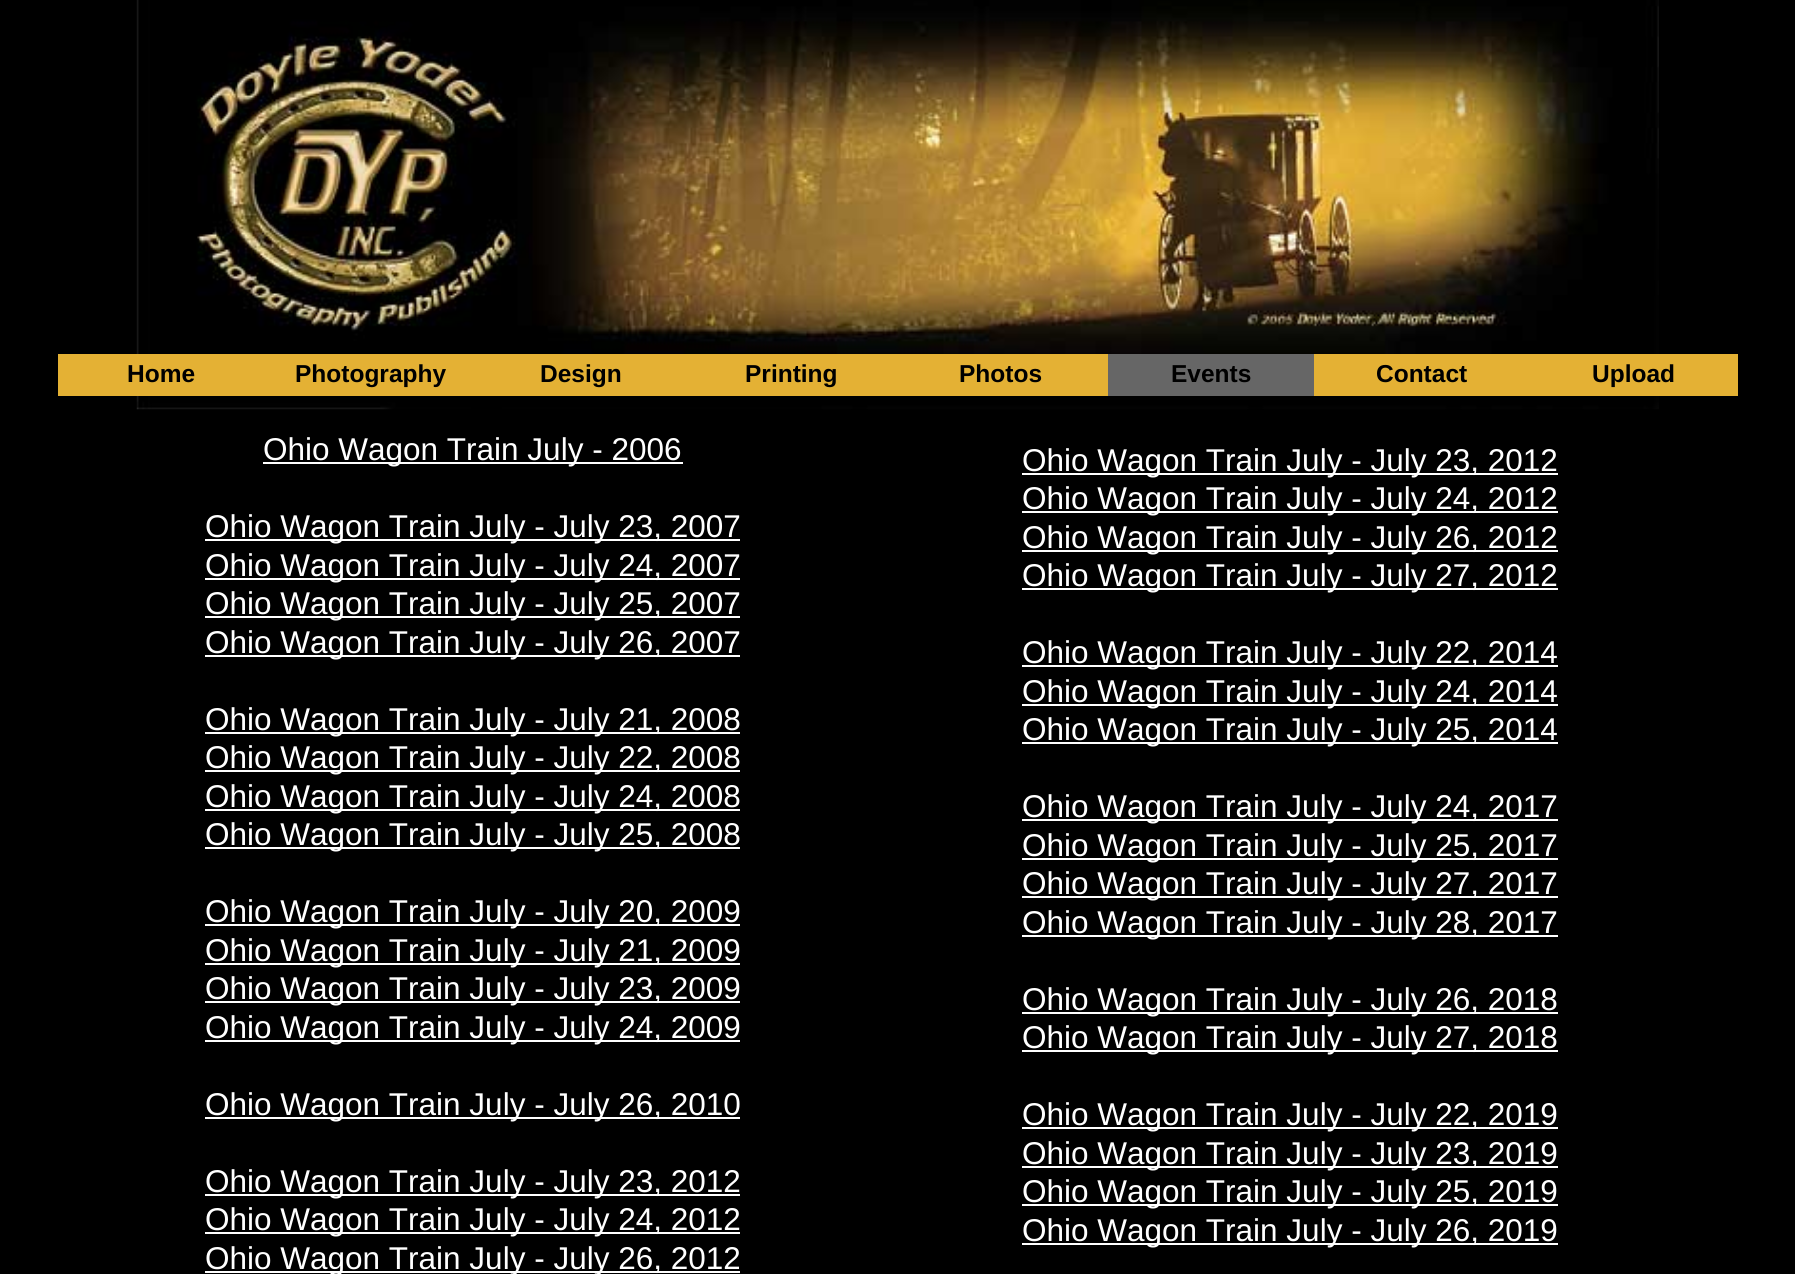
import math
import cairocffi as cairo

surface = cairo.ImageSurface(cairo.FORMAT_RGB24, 1795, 1274)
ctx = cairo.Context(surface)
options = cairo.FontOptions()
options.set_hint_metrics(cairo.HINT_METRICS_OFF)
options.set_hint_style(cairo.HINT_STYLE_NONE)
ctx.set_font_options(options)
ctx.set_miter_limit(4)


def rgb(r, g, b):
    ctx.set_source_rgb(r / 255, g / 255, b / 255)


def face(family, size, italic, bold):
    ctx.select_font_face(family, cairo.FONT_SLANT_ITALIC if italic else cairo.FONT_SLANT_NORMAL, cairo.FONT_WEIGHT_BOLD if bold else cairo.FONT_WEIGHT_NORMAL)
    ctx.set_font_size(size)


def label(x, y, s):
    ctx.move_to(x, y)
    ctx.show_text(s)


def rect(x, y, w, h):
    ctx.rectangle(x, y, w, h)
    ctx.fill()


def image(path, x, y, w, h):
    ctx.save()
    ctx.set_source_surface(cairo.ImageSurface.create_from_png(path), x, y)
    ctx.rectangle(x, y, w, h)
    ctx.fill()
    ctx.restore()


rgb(0, 0, 0)
ctx.paint()
image('image0.png', 136, 0, 1523, 410)
rgb(228, 177, 52)
rect(58, 354, 1680, 42)
face('Liberation Sans', 24.5, 0, 1)
rgb(0, 0, 0)
label(127, 382, 'Home')
label(295, 382, 'Photography')
label(540, 382, 'Design')
label(745, 382, 'Printing')
label(959, 382, 'Photos')
rgb(102, 102, 102)
rect(1108, 354, 206, 42)
rgb(0, 0, 0)
label(1171, 382, 'Events')
label(1376, 382, 'Contact')
label(1592, 382, 'Upload')
rgb(255, 255, 255)
rect(263, 462, 420, 2)
face('Liberation Sans', 31.5, 0, 0)
label(263, 460, 'Ohio Wagon Train July - 2006')
rect(205, 539, 535, 2)
label(205, 537, 'Ohio Wagon Train July - July 23, 2007')
rect(205, 578, 535, 2)
label(205, 576, 'Ohio Wagon Train July - July 24, 2007')
rect(205, 616, 535, 2)
label(205, 614, 'Ohio Wagon Train July - July 25, 2007')
rect(205, 655, 535, 2)
label(205, 653, 'Ohio Wagon Train July - July 26, 2007')
rect(205, 732, 535, 2)
label(205, 730, 'Ohio Wagon Train July - July 21, 2008')
rect(205, 770, 535, 2)
label(205, 768, 'Ohio Wagon Train July - July 22, 2008')
rect(205, 809, 535, 2)
label(205, 807, 'Ohio Wagon Train July - July 24, 2008')
rect(205, 847, 535, 2)
label(205, 845, 'Ohio Wagon Train July - July 25, 2008')
rect(205, 924, 535, 2)
label(205, 922, 'Ohio Wagon Train July - July 20, 2009')
rect(205, 963, 535, 2)
label(205, 961, 'Ohio Wagon Train July - July 21, 2009')
rect(205, 1001, 535, 2)
label(205, 999, 'Ohio Wagon Train July - July 23, 2009')
rect(205, 1040, 535, 2)
label(205, 1038, 'Ohio Wagon Train July - July 24, 2009')
rect(205, 1117, 535, 2)
label(205, 1115, 'Ohio Wagon Train July - July 26, 2010')
rect(205, 1194, 535, 2)
label(205, 1192, 'Ohio Wagon Train July - July 23, 2012')
rect(205, 1232, 535, 2)
label(205, 1230, 'Ohio Wagon Train July - July 24, 2012')
rect(205, 1271, 535, 2)
label(205, 1269, 'Ohio Wagon Train July - July 26, 2012')
rect(1022, 473, 536, 2)
label(1022, 471, 'Ohio Wagon Train July - July 23, 2012')
rect(1022, 511, 536, 2)
label(1022, 509, 'Ohio Wagon Train July - July 24, 2012')
rect(1022, 550, 536, 2)
label(1022, 548, 'Ohio Wagon Train July - July 26, 2012')
rect(1022, 588, 536, 2)
label(1022, 586, 'Ohio Wagon Train July - July 27, 2012')
rect(1022, 665, 536, 2)
label(1022, 663, 'Ohio Wagon Train July - July 22, 2014')
rect(1022, 704, 536, 2)
label(1022, 702, 'Ohio Wagon Train July - July 24, 2014')
rect(1022, 742, 536, 2)
label(1022, 740, 'Ohio Wagon Train July - July 25, 2014')
rect(1022, 819, 536, 2)
label(1022, 817, 'Ohio Wagon Train July - July 24, 2017')
rect(1022, 858, 536, 2)
label(1022, 856, 'Ohio Wagon Train July - July 25, 2017')
rect(1022, 896, 536, 2)
label(1022, 894, 'Ohio Wagon Train July - July 27, 2017')
rect(1022, 935, 536, 2)
label(1022, 933, 'Ohio Wagon Train July - July 28, 2017')
rect(1022, 1012, 536, 2)
label(1022, 1010, 'Ohio Wagon Train July - July 26, 2018')
rect(1022, 1050, 536, 2)
label(1022, 1048, 'Ohio Wagon Train July - July 27, 2018')
rect(1022, 1127, 536, 2)
label(1022, 1125, 'Ohio Wagon Train July - July 22, 2019')
rect(1022, 1166, 536, 2)
label(1022, 1164, 'Ohio Wagon Train July - July 23, 2019')
rect(1022, 1204, 536, 2)
label(1022, 1202, 'Ohio Wagon Train July - July 25, 2019')
rect(1022, 1243, 536, 2)
label(1022, 1241, 'Ohio Wagon Train July - July 26, 2019')
surface.write_to_png('render.png')
